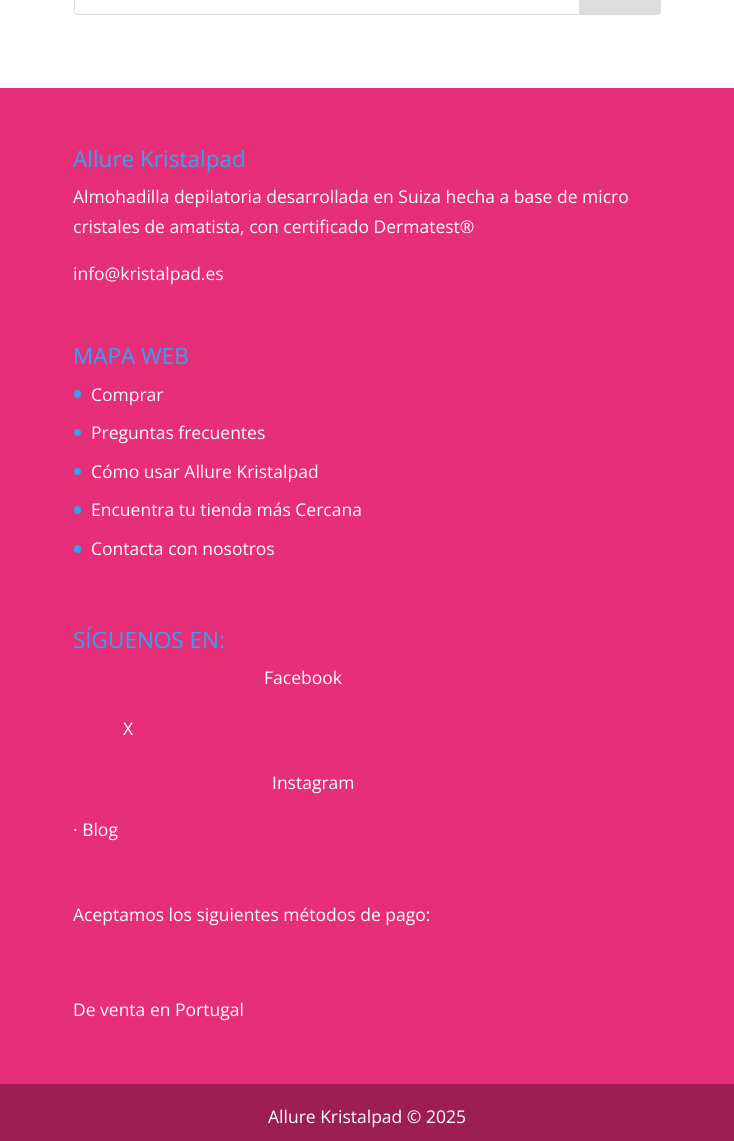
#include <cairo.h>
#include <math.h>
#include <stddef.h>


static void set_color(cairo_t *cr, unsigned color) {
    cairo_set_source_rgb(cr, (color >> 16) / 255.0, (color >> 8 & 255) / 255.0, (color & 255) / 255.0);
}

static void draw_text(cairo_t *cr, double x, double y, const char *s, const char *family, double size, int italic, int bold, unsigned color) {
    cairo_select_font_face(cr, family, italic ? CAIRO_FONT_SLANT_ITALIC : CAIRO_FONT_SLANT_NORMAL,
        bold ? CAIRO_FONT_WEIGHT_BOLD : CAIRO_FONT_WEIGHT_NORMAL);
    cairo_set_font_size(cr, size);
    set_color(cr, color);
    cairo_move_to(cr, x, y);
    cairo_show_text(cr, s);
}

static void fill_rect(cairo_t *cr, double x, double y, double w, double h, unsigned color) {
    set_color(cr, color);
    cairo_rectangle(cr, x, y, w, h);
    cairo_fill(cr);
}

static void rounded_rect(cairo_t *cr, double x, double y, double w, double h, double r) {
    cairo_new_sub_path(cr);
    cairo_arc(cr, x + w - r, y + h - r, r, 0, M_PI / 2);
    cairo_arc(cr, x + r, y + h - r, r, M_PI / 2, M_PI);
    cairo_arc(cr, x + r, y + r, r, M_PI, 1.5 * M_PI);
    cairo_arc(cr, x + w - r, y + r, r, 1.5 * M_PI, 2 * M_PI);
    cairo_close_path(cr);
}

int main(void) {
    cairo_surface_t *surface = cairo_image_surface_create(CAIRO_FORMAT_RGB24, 734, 1141);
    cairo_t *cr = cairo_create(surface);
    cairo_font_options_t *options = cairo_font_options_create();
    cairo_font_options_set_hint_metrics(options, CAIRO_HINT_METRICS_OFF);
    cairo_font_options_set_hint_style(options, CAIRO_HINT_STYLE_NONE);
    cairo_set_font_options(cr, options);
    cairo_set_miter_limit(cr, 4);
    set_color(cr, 0xFFFFFF);
    cairo_paint(cr);
    rounded_rect(cr, 74.5, -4.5, 586, 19, 3.5);
    set_color(cr, 0xDDDDDD);
    cairo_set_line_width(cr, 1);
    cairo_stroke(cr);
    cairo_new_path(cr);
    cairo_move_to(cr, 579.5, -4.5);
    cairo_line_to(cr, 657, -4.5);
    cairo_curve_to(cr, 659, -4.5, 660.5, -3, 660.5, -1);
    cairo_line_to(cr, 660.5, 11);
    cairo_curve_to(cr, 660.5, 13, 659, 14.5, 657, 14.5);
    cairo_line_to(cr, 579.5, 14.5);
    cairo_close_path(cr);
    cairo_fill_preserve(cr);
    cairo_stroke(cr);
    fill_rect(cr, 0, 88, 734, 996, 0xE72E78);
    draw_text(cr, 73, 167, "Allure Kristalpad", "Open Sans", 22.5, 0, 0, 0x2EA3F2);
    draw_text(cr, 73, 203, "Almohadilla depilatoria desarrollada en Suiza hecha a base de micro", "Open Sans", 17.5, 0, 0, 0xFFFFFF);
    draw_text(cr, 73, 233, "cristales de amatista, con certificado Dermatest®", "Open Sans", 17.5, 0, 0, 0xFFFFFF);
    draw_text(cr, 73, 280, "info@kristalpad.es", "Open Sans", 17.5, 0, 0, 0xFFFFFF);
    draw_text(cr, 73, 364, "MAPA WEB", "Open Sans", 22.5, 0, 0, 0x2EA3F2);
    rounded_rect(cr, 74, 390, 7, 8, 3.5);
    cairo_fill(cr);
    draw_text(cr, 91, 401, "Comprar", "Open Sans", 17.5, 0, 0, 0xFFFFFF);
    set_color(cr, 0x2EA3F2);
    cairo_new_path(cr);
    cairo_arc(cr, 77.5, 432.5, 3.5, 0, 2 * M_PI);
    cairo_fill(cr);
    draw_text(cr, 91, 439, "Preguntas frecuentes", "Open Sans", 17.5, 0, 0, 0xFFFFFF);
    set_color(cr, 0x2EA3F2);
    cairo_new_path(cr);
    cairo_arc(cr, 77.5, 471.5, 3.5, 0, 2 * M_PI);
    cairo_fill(cr);
    draw_text(cr, 91, 478, "Cómo usar Allure Kristalpad", "Open Sans", 17.5, 0, 0, 0xFFFFFF);
    set_color(cr, 0x2EA3F2);
    rounded_rect(cr, 74, 506, 7, 8, 3.5);
    cairo_fill(cr);
    draw_text(cr, 91, 516, "Encuentra tu tienda más Cercana", "Open Sans", 17.5, 0, 0, 0xFFFFFF);
    set_color(cr, 0x2EA3F2);
    rounded_rect(cr, 74, 545, 7, 8, 3.5);
    cairo_fill(cr);
    draw_text(cr, 91, 555, "Contacta con nosotros", "Open Sans", 17.5, 0, 0, 0xFFFFFF);
    draw_text(cr, 73, 648, "SÍGUENOS EN:", "Open Sans", 22.5, 0, 0, 0x2EA3F2);
    draw_text(cr, 264, 684, "Facebook", "Open Sans", 17.5, 0, 0, 0xFFFFFF);
    draw_text(cr, 123, 735, "X", "Open Sans", 17.5, 0, 0, 0xFFFFFF);
    draw_text(cr, 272, 789, "Instagram", "Open Sans", 17.5, 0, 0, 0xFFFFFF);
    draw_text(cr, 73, 836, "· Blog", "Open Sans", 17.5, 0, 0, 0xFFFFFF);
    draw_text(cr, 73, 921, "Aceptamos los siguientes métodos de pago:", "Open Sans", 17.5, 0, 0, 0xFFFFFF);
    draw_text(cr, 73, 1016, "De venta en Portugal", "Open Sans", 17.5, 0, 0, 0xFFFFFF);
    fill_rect(cr, 0, 1084, 734, 57, 0x9D1F52);
    draw_text(cr, 268, 1123, "Allure Kristalpad © 2025", "Open Sans", 17.5, 0, 0, 0xFFFFFF);
    cairo_surface_write_to_png(surface, "output.png");
    cairo_font_options_destroy(options);
    cairo_destroy(cr);
    cairo_surface_destroy(surface);
    return 0;
}
